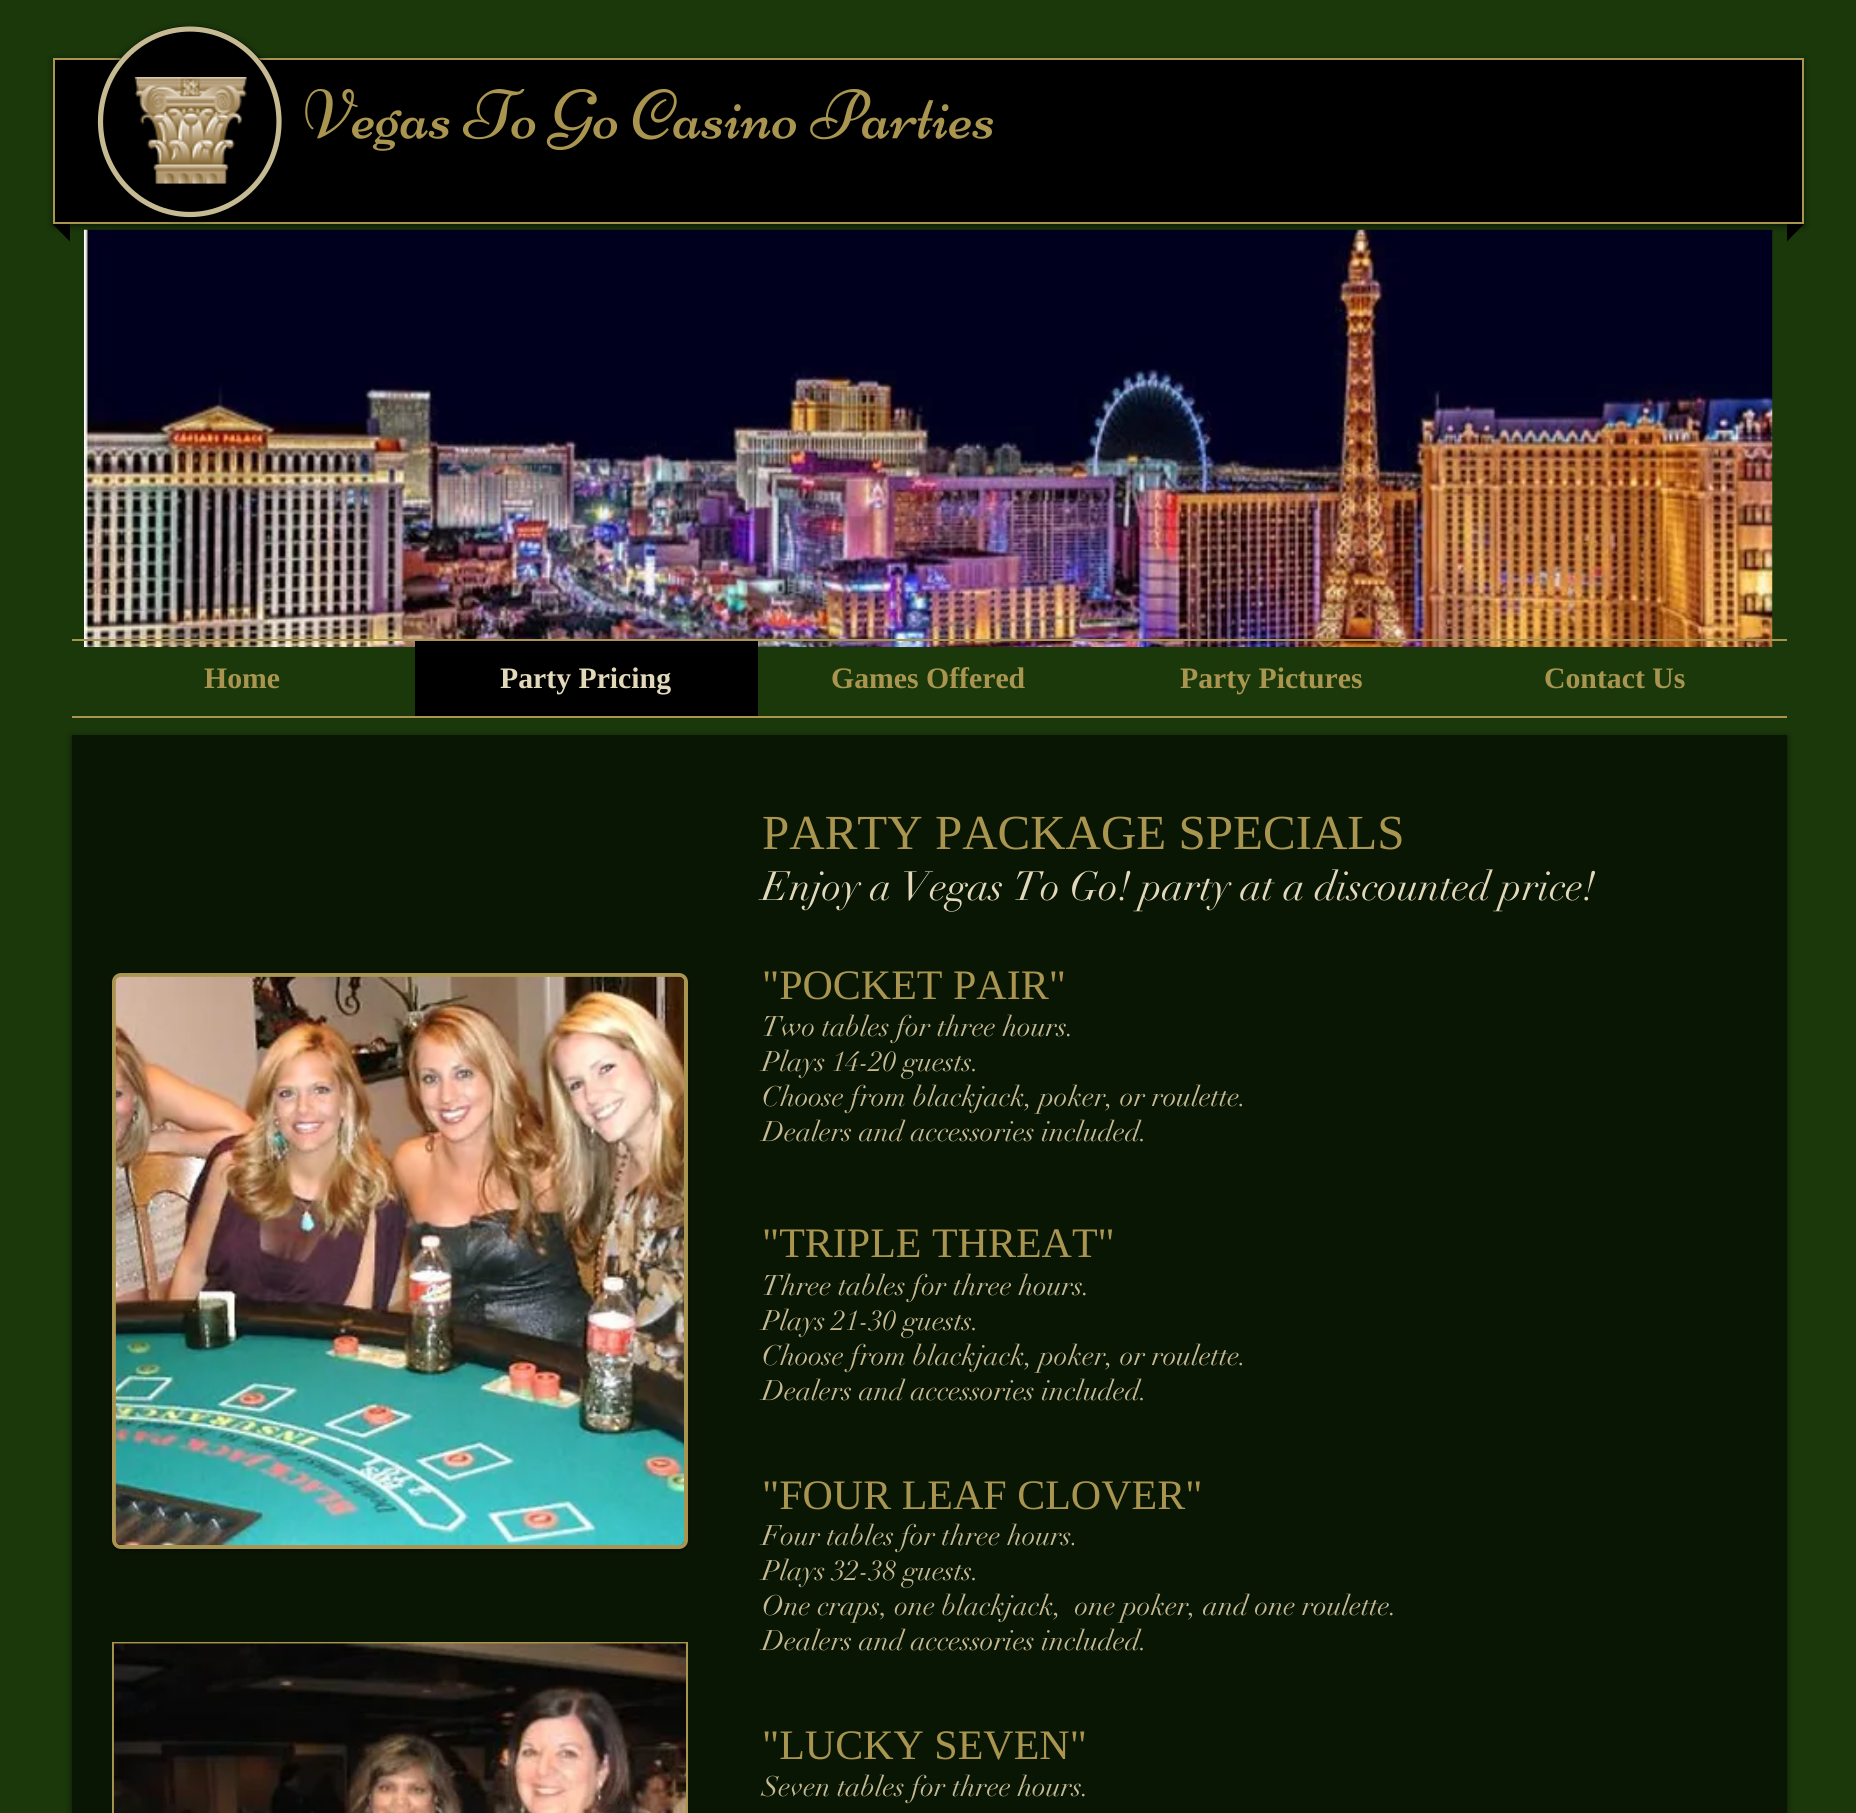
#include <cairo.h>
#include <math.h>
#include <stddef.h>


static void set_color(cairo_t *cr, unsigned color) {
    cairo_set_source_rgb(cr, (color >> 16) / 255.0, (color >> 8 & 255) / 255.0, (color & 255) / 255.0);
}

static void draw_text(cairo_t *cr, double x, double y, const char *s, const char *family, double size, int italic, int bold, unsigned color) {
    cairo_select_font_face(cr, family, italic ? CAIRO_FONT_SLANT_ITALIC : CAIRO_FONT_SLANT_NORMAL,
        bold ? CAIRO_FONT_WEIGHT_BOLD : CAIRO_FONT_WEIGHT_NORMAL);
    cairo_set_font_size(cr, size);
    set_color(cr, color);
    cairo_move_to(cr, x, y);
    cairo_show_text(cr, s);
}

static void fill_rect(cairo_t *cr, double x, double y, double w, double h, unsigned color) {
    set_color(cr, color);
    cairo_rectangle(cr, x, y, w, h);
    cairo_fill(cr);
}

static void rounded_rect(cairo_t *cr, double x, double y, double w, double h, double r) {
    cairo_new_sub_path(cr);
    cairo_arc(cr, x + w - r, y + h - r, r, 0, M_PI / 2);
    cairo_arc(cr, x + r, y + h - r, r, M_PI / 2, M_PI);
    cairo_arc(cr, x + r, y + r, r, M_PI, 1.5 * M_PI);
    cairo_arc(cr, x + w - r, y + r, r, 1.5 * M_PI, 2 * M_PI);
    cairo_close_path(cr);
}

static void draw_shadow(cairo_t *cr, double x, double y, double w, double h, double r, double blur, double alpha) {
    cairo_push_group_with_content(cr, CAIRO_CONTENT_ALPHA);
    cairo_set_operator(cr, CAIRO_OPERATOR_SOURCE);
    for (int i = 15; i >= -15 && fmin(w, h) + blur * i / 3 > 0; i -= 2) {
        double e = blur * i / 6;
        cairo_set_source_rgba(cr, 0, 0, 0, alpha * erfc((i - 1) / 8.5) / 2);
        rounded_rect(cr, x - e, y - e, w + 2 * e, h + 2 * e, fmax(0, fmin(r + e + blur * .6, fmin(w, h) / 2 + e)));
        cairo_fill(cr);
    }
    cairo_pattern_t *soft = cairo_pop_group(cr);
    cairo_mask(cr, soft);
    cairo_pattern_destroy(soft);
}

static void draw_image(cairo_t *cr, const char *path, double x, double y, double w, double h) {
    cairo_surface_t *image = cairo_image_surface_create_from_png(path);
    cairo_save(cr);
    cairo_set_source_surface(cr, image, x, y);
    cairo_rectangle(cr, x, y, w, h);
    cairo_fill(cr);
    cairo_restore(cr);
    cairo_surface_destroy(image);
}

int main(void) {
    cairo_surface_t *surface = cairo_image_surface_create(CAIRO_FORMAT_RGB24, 1856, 1813);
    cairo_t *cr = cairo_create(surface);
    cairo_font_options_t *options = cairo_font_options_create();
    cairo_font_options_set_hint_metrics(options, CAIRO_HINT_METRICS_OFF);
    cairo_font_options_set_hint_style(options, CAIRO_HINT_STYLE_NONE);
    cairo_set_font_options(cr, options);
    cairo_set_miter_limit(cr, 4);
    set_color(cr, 0x1A380A);
    cairo_paint(cr);
    set_color(cr, 0x000000);
    cairo_new_path(cr);
    cairo_move_to(cr, 52.5, 224);
    cairo_line_to(cr, 70, 224);
    cairo_line_to(cr, 70, 241.5);
    cairo_close_path(cr);
    cairo_fill(cr);
    cairo_new_path(cr);
    cairo_move_to(cr, 1787, 224);
    cairo_line_to(cr, 1804, 224);
    cairo_line_to(cr, 1787, 241.5);
    cairo_close_path(cr);
    cairo_fill(cr);
    set_color(cr, 0x000000);
    draw_shadow(cr, 53, 60, 1751, 166, 0, 3.5, 0.6);
    set_color(cr, 0x000000);
    cairo_rectangle(cr, 54, 59, 1749, 164);
    cairo_fill_preserve(cr);
    set_color(cr, 0xAA9550);
    cairo_stroke(cr);
    set_color(cr, 0x000000);
    draw_shadow(cr, 98, 28, 184, 191, 92, 3.5, 0.6);
    set_color(cr, 0x000000);
    cairo_new_path(cr);
    cairo_move_to(cr, 190, 26);
    cairo_curve_to(cr, 241, 26, 282, 69, 282, 121.5);
    cairo_curve_to(cr, 282, 174, 241, 217, 190, 217);
    cairo_curve_to(cr, 139, 217, 98, 174, 98, 121.5);
    cairo_curve_to(cr, 98, 69, 139, 26, 190, 26);
    cairo_close_path(cr);
    cairo_fill(cr);
    cairo_new_path(cr);
    cairo_move_to(cr, 190, 29);
    cairo_curve_to(cr, 239, 29, 279, 70.5, 279, 121.5);
    cairo_curve_to(cr, 279, 173, 239, 214.5, 190, 214.5);
    cairo_curve_to(cr, 140.5, 214.5, 100.5, 173, 100.5, 121.5);
    cairo_curve_to(cr, 100.5, 70.5, 140.5, 29, 190, 29);
    cairo_close_path(cr);
    set_color(cr, 0xC6BA92);
    cairo_set_line_width(cr, 5.2);
    cairo_stroke(cr);
    draw_image(cr, "assets/img1.png", 134, 77, 113, 107);
    draw_image(cr, "assets/img2.png", 305, 89, 688, 62);
    draw_image(cr, "assets/img3.png", 84, 229, 1689, 419);
    fill_rect(cr, 72, 639, 1715, 2, 0xAA9550);
    fill_rect(cr, 72, 716, 1715, 2, 0xAA9550);
    draw_text(cr, 204, 688, "Home", "Liberation Serif", 29.75, 0, 1, 0xAA9550);
    fill_rect(cr, 415, 641, 343, 75, 0x000000);
    draw_text(cr, 500, 688, "Party Pricing", "Liberation Serif", 29.75, 0, 1, 0xE2D9BA);
    draw_text(cr, 831, 688, "Games Offered", "Liberation Serif", 29.75, 0, 1, 0xAA9550);
    draw_text(cr, 1180, 688, "Party Pictures", "Liberation Serif", 29.75, 0, 1, 0xAA9550);
    draw_text(cr, 1544, 688, "Contact Us", "Liberation Serif", 29.75, 0, 1, 0xAA9550);
    cairo_save(cr);
    cairo_set_fill_rule(cr, CAIRO_FILL_RULE_EVEN_ODD);
    cairo_new_path(cr);
    cairo_move_to(cr, 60, 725);
    cairo_line_to(cr, 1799, 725);
    cairo_line_to(cr, 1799, 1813);
    cairo_line_to(cr, 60, 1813);
    cairo_close_path(cr);
    cairo_move_to(cr, 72, 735);
    cairo_line_to(cr, 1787, 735);
    cairo_line_to(cr, 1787, 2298);
    cairo_line_to(cr, 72, 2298);
    cairo_close_path(cr);
    cairo_clip(cr);
    set_color(cr, 0x000000);
    draw_shadow(cr, 72, 737, 1715, 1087, 0, 3.5, 0.6);
    cairo_restore(cr);
    cairo_set_source_rgba(cr, 0, 0, 0, 0.6);
    cairo_rectangle(cr, 72, 735, 1715, 1078);
    cairo_fill(cr);
    set_color(cr, 0x000000);
    draw_shadow(cr, 112, 975, 576, 576, 9, 2.5, 0.5);
    rounded_rect(cr, 114, 975, 572, 572, 7);
    set_color(cr, 0xAA9550);
    cairo_set_line_width(cr, 4);
    cairo_stroke(cr);
    draw_image(cr, "assets/img4.png", 115, 976, 569, 569);
    draw_text(cr, 762, 849, "PARTY PACKAGE SPECIALS", "Liberation Serif", 49, 0, 0, 0xAA9550);
    draw_text(cr, 762, 900, "Enjoy a Vegas To Go! party at a discounted price!", "didot", 40.25, 0, 0, 0xE2D9BA);
    draw_text(cr, 762, 999, "\"POCKET PAIR\"", "Liberation Serif", 42, 0, 0, 0xAA9550);
    draw_text(cr, 762, 1036, "Two tables for three hours.", "didot", 28, 0, 0, 0xC6BA92);
    draw_text(cr, 762, 1071, "Plays 14-20 guests.", "didot", 28, 0, 0, 0xC6BA92);
    draw_text(cr, 762, 1106, "Choose from blackjack, poker, or roulette.", "didot", 28, 0, 0, 0xC6BA92);
    draw_text(cr, 762, 1141, "Dealers and accessories included.", "didot", 28, 0, 0, 0xC6BA92);
    draw_text(cr, 762, 1257, "\"TRIPLE THREAT\"", "Liberation Serif", 42, 0, 0, 0xAA9550);
    draw_text(cr, 762, 1295, "Three tables for three hours.", "didot", 28, 0, 0, 0xC6BA92);
    draw_text(cr, 762, 1330, "Plays 21-30 guests.", "didot", 28, 0, 0, 0xC6BA92);
    draw_text(cr, 762, 1365, "Choose from blackjack, poker, or roulette.", "didot", 28, 0, 0, 0xC6BA92);
    draw_text(cr, 762, 1400, "Dealers and accessories included.", "didot", 28, 0, 0, 0xC6BA92);
    draw_text(cr, 762, 1509, "\"FOUR LEAF CLOVER\"", "Liberation Serif", 42, 0, 0, 0xAA9550);
    draw_text(cr, 762, 1545, "Four tables for three hours.", "didot", 28, 0, 0, 0xC6BA92);
    draw_text(cr, 762, 1580, "Plays 32-38 guests.", "didot", 28, 0, 0, 0xC6BA92);
    draw_text(cr, 762, 1615, "One craps, one blackjack,  one poker, and one roulette.", "didot", 28, 0, 0, 0xC6BA92);
    draw_text(cr, 762, 1650, "Dealers and accessories included.", "didot", 28, 0, 0, 0xC6BA92);
    draw_text(cr, 762, 1759, "\"LUCKY SEVEN\"", "Liberation Serif", 42, 0, 0, 0xAA9550);
    draw_text(cr, 762, 1796, "Seven tables for three hours.", "didot", 28, 0, 0, 0xC6BA92);
    fill_rect(cr, 112, 1642, 576, 171, 0xAA9550);
    draw_image(cr, "assets/img5.png", 113, 1643, 573, 170);
    cairo_surface_write_to_png(surface, "output.png");
    cairo_font_options_destroy(options);
    cairo_destroy(cr);
    cairo_surface_destroy(surface);
    return 0;
}
